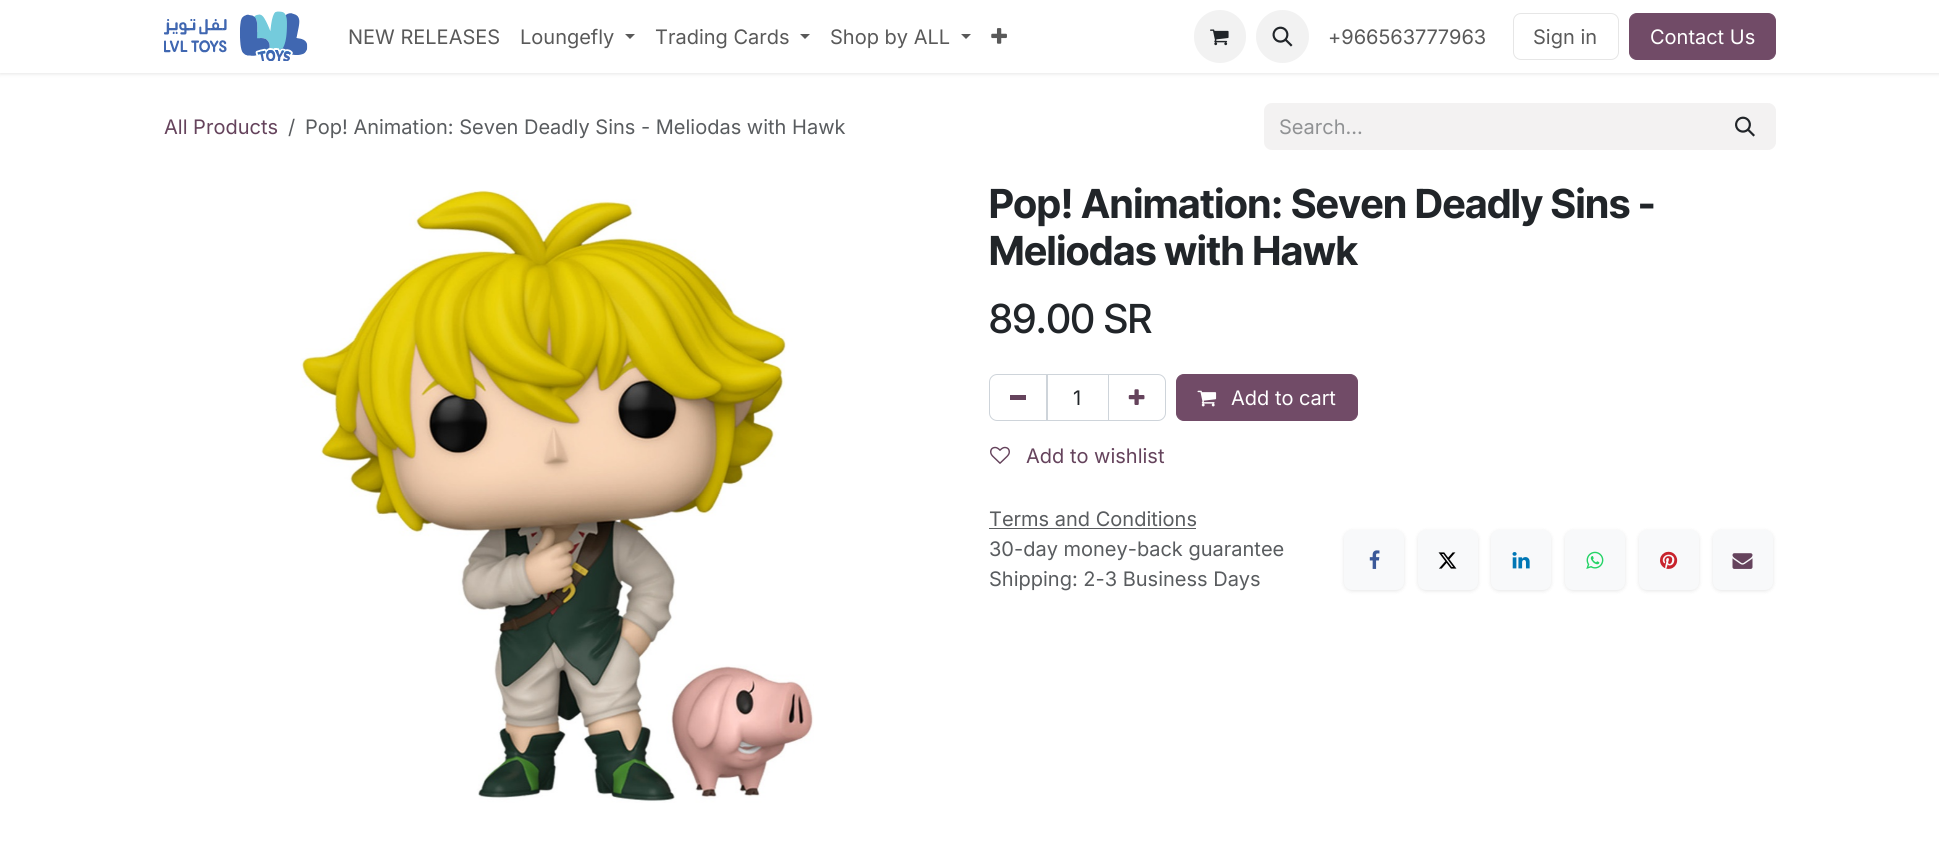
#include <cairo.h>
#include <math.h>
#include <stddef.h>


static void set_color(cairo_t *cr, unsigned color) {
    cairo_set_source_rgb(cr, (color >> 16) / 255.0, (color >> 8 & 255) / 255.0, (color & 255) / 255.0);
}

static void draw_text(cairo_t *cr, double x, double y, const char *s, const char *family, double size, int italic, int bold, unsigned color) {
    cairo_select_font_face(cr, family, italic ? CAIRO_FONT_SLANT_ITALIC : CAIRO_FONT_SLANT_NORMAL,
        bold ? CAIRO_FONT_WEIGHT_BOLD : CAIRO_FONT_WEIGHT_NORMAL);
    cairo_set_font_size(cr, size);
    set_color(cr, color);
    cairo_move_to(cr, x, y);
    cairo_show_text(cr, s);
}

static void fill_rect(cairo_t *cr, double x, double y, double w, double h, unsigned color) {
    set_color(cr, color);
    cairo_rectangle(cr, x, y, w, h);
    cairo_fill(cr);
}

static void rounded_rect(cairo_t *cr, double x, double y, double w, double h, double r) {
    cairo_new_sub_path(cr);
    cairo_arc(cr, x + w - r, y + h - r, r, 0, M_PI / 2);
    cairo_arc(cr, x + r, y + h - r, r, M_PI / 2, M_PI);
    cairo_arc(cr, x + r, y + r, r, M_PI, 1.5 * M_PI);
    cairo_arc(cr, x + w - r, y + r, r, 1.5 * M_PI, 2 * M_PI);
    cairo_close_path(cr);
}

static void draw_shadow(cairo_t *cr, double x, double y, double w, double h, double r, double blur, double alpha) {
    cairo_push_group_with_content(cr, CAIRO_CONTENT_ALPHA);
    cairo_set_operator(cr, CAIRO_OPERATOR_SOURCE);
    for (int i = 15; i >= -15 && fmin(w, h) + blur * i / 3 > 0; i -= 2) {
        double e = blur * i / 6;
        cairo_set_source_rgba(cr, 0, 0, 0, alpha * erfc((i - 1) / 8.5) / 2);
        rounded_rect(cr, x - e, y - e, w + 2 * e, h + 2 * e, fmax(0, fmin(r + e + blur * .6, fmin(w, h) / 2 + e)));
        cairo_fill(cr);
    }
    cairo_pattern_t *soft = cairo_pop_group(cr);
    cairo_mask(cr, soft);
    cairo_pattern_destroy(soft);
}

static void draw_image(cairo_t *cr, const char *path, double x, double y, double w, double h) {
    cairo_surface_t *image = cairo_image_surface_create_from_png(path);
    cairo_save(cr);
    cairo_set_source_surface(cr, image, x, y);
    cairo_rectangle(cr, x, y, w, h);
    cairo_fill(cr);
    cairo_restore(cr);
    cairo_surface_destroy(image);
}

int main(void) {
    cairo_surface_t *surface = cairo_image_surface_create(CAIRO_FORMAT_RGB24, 1939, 843);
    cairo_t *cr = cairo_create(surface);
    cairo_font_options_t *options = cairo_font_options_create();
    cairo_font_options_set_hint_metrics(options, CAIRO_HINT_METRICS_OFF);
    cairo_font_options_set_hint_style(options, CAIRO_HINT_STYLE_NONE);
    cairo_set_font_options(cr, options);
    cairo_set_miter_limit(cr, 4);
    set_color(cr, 0xFFFFFF);
    cairo_paint(cr);
    set_color(cr, 0x000000);
    draw_shadow(cr, 0, 1, 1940, 73, 0, 2, 0.1);
    fill_rect(cr, 0, 0, 1939, 73, 0xFFFFFF);
    draw_image(cr, "assets/img1.png", 164, 11, 144, 50);
    draw_text(cr, 348, 44, "NEW RELEASES", "Inter", 20, 0, 0, 0x595959);
    draw_text(cr, 520, 44, "Loungefly", "Inter", 20, 0, 0, 0x595959);
    cairo_new_path(cr);
    cairo_move_to(cr, 625, 34);
    cairo_line_to(cr, 635, 34);
    cairo_line_to(cr, 630, 39);
    cairo_close_path(cr);
    cairo_fill(cr);
    draw_text(cr, 655, 44, "Trading Cards", "Inter", 20, 0, 0, 0x595959);
    cairo_new_path(cr);
    cairo_move_to(cr, 800, 34);
    cairo_line_to(cr, 810, 34);
    cairo_line_to(cr, 805, 39);
    cairo_close_path(cr);
    cairo_fill(cr);
    draw_text(cr, 830, 44, "Shop by ALL", "Inter", 20, 0, 0, 0x595959);
    cairo_new_path(cr);
    cairo_move_to(cr, 961, 34);
    cairo_line_to(cr, 971, 34);
    cairo_line_to(cr, 966, 39);
    cairo_close_path(cr);
    cairo_fill(cr);
    draw_image(cr, "assets/img2.png", 991, 28, 16, 16);
    set_color(cr, 0xF2F2F2);
    rounded_rect(cr, 1194, 10, 52, 53, 26);
    cairo_fill(cr);
    draw_image(cr, "assets/img3.png", 1210, 29, 19, 17);
    cairo_arc(cr, 1282.5, 36.5, 26.5, 0, 2 * M_PI);
    cairo_fill(cr);
    draw_image(cr, "assets/img4.png", 1272, 26, 21, 21);
    draw_text(cr, 1328, 44, "+966563777963", "Inter", 20, 0, 0, 0x595959);
    rounded_rect(cr, 1513.5, 13.5, 105, 46, 7.5);
    set_color(cr, 0xE6E6E6);
    cairo_set_line_width(cr, 1);
    cairo_stroke(cr);
    draw_text(cr, 1533, 44, "Sign in", "Inter", 20, 0, 0, 0x595959);
    set_color(cr, 0x714B67);
    rounded_rect(cr, 1629.5, 13.5, 146, 46, 7.5);
    cairo_fill_preserve(cr);
    cairo_stroke(cr);
    draw_text(cr, 1650, 44, "Contact Us", "Inter", 20, 0, 0, 0xFFFFFF);
    draw_text(cr, 164, 134, "All Products", "Inter", 20, 0, 0, 0x65435C);
    draw_text(cr, 288, 134, "/", "Inter", 20, 0, 0, 0x595C5F);
    draw_text(cr, 305, 134, "Pop! Animation: Seven Deadly Sins - Meliodas with Hawk", "Inter", 20, 0, 0, 0x595C5F);
    set_color(cr, 0xF3F2F2);
    cairo_new_path(cr);
    cairo_move_to(cr, 1272, 103);
    cairo_line_to(cr, 1715, 103);
    cairo_line_to(cr, 1715, 150);
    cairo_line_to(cr, 1272, 150);
    cairo_curve_to(cr, 1267.5, 150, 1264, 146.5, 1264, 142);
    cairo_line_to(cr, 1264, 111);
    cairo_curve_to(cr, 1264, 106.5, 1267.5, 103, 1272, 103);
    cairo_close_path(cr);
    cairo_fill(cr);
    draw_text(cr, 1279, 134, "Search...", "Inter", 20, 0, 0, 0x909294);
    set_color(cr, 0xF3F2F2);
    cairo_new_path(cr);
    cairo_move_to(cr, 1714.5, 103.5);
    cairo_line_to(cr, 1768, 103.5);
    cairo_curve_to(cr, 1772, 103.5, 1775.5, 107, 1775.5, 111);
    cairo_line_to(cr, 1775.5, 142);
    cairo_curve_to(cr, 1775.5, 146, 1772, 149.5, 1768, 149.5);
    cairo_line_to(cr, 1714.5, 149.5);
    cairo_close_path(cr);
    cairo_fill_preserve(cr);
    cairo_stroke(cr);
    draw_image(cr, "assets/img5.png", 1735, 116, 20, 21);
    draw_image(cr, "assets/img6.png", 300, 190, 514, 613);
    draw_text(cr, 989, 218, "Pop! Animation: Seven Deadly Sins -", "Inter Tight", 40, 0, 1, 0x212529);
    draw_text(cr, 989, 265, "Meliodas with Hawk", "Inter Tight", 40, 0, 1, 0x212529);
    draw_text(cr, 989, 333, "89.00 SR", "Inter Tight Medium", 40, 0, 0, 0x212529);
    cairo_rectangle(cr, 1046.5, 374.5, 62, 46);
    set_color(cr, 0xCED4DA);
    cairo_stroke(cr);
    cairo_new_path(cr);
    cairo_move_to(cr, 997, 374.5);
    cairo_line_to(cr, 1047.5, 374.5);
    cairo_line_to(cr, 1047.5, 420.5);
    cairo_line_to(cr, 997, 420.5);
    cairo_curve_to(cr, 993, 420.5, 989.5, 417, 989.5, 413);
    cairo_line_to(cr, 989.5, 382);
    cairo_curve_to(cr, 989.5, 378, 993, 374.5, 997, 374.5);
    cairo_close_path(cr);
    cairo_stroke(cr);
    fill_rect(cr, 1010, 395, 16, 5, 0x65435C);
    draw_text(cr, 1073, 405, "1", "Inter", 20, 0, 0, 0x212529);
    cairo_new_path(cr);
    cairo_move_to(cr, 1108.5, 374.5);
    cairo_line_to(cr, 1158, 374.5);
    cairo_curve_to(cr, 1162, 374.5, 1165.5, 378, 1165.5, 382);
    cairo_line_to(cr, 1165.5, 413);
    cairo_curve_to(cr, 1165.5, 417, 1162, 420.5, 1158, 420.5);
    cairo_line_to(cr, 1108.5, 420.5);
    cairo_close_path(cr);
    set_color(cr, 0xCED4DA);
    cairo_stroke(cr);
    draw_image(cr, "assets/img7.png", 1128, 389, 17, 16);
    set_color(cr, 0x714B67);
    rounded_rect(cr, 1176.5, 374.5, 181, 46, 7.5);
    cairo_fill_preserve(cr);
    cairo_stroke(cr);
    draw_image(cr, "assets/img8.png", 1197, 390, 20, 17);
    draw_text(cr, 1231, 405, "Add to cart", "Inter", 20, 0, 0, 0xFFFFFF);
    draw_image(cr, "assets/img9.png", 990, 446, 20, 18);
    draw_text(cr, 1026, 463, "Add to wishlist", "Inter", 20, 0, 0, 0x65435C);
    draw_text(cr, 989, 526, "Terms and Conditions", "Inter", 20, 0, 0, 0x595C5F);
    fill_rect(cr, 989, 528, 207, 1, 0x595C5F);
    draw_text(cr, 989, 556, "30-day money-back guarantee", "Inter", 20, 0, 0, 0x595C5F);
    draw_text(cr, 989, 586, "Shipping: 2-3 Business Days", "Inter", 20, 0, 0, 0x595C5F);
    set_color(cr, 0x000000);
    draw_shadow(cr, 1344, 531, 60, 60, 8, 2, 0.1);
    set_color(cr, 0xF8F9FA);
    rounded_rect(cr, 1344, 530, 60, 60, 8);
    cairo_fill(cr);
    draw_image(cr, "assets/img10.png", 1369, 550, 11, 19);
    set_color(cr, 0x000000);
    draw_shadow(cr, 1418, 531, 60, 60, 8, 2, 0.1);
    set_color(cr, 0xF8F9FA);
    rounded_rect(cr, 1418, 530, 60, 60, 8);
    cairo_fill(cr);
    draw_image(cr, "assets/img11.png", 1438, 552, 19, 17);
    set_color(cr, 0x000000);
    draw_shadow(cr, 1491, 531, 60, 60, 8, 2, 0.1);
    set_color(cr, 0xF8F9FA);
    rounded_rect(cr, 1491, 530, 60, 60, 8);
    cairo_fill(cr);
    draw_image(cr, "assets/img12.png", 1512, 552, 18, 17);
    set_color(cr, 0x000000);
    draw_shadow(cr, 1565, 531, 60, 60, 8, 2, 0.1);
    set_color(cr, 0xF8F9FA);
    rounded_rect(cr, 1565, 530, 60, 60, 8);
    cairo_fill(cr);
    draw_image(cr, "assets/img13.png", 1586, 551, 18, 18);
    set_color(cr, 0x000000);
    draw_shadow(cr, 1639, 531, 60, 60, 8, 2, 0.1);
    set_color(cr, 0xF8F9FA);
    rounded_rect(cr, 1639, 530, 60, 60, 8);
    cairo_fill(cr);
    draw_image(cr, "assets/img14.png", 1660, 551, 18, 18);
    set_color(cr, 0x000000);
    draw_shadow(cr, 1713, 531, 60, 60, 8, 2, 0.1);
    set_color(cr, 0xF8F9FA);
    rounded_rect(cr, 1713, 530, 60, 60, 8);
    cairo_fill(cr);
    draw_image(cr, "assets/img15.png", 1732, 553, 21, 16);
    cairo_surface_write_to_png(surface, "output.png");
    cairo_font_options_destroy(options);
    cairo_destroy(cr);
    cairo_surface_destroy(surface);
    return 0;
}
